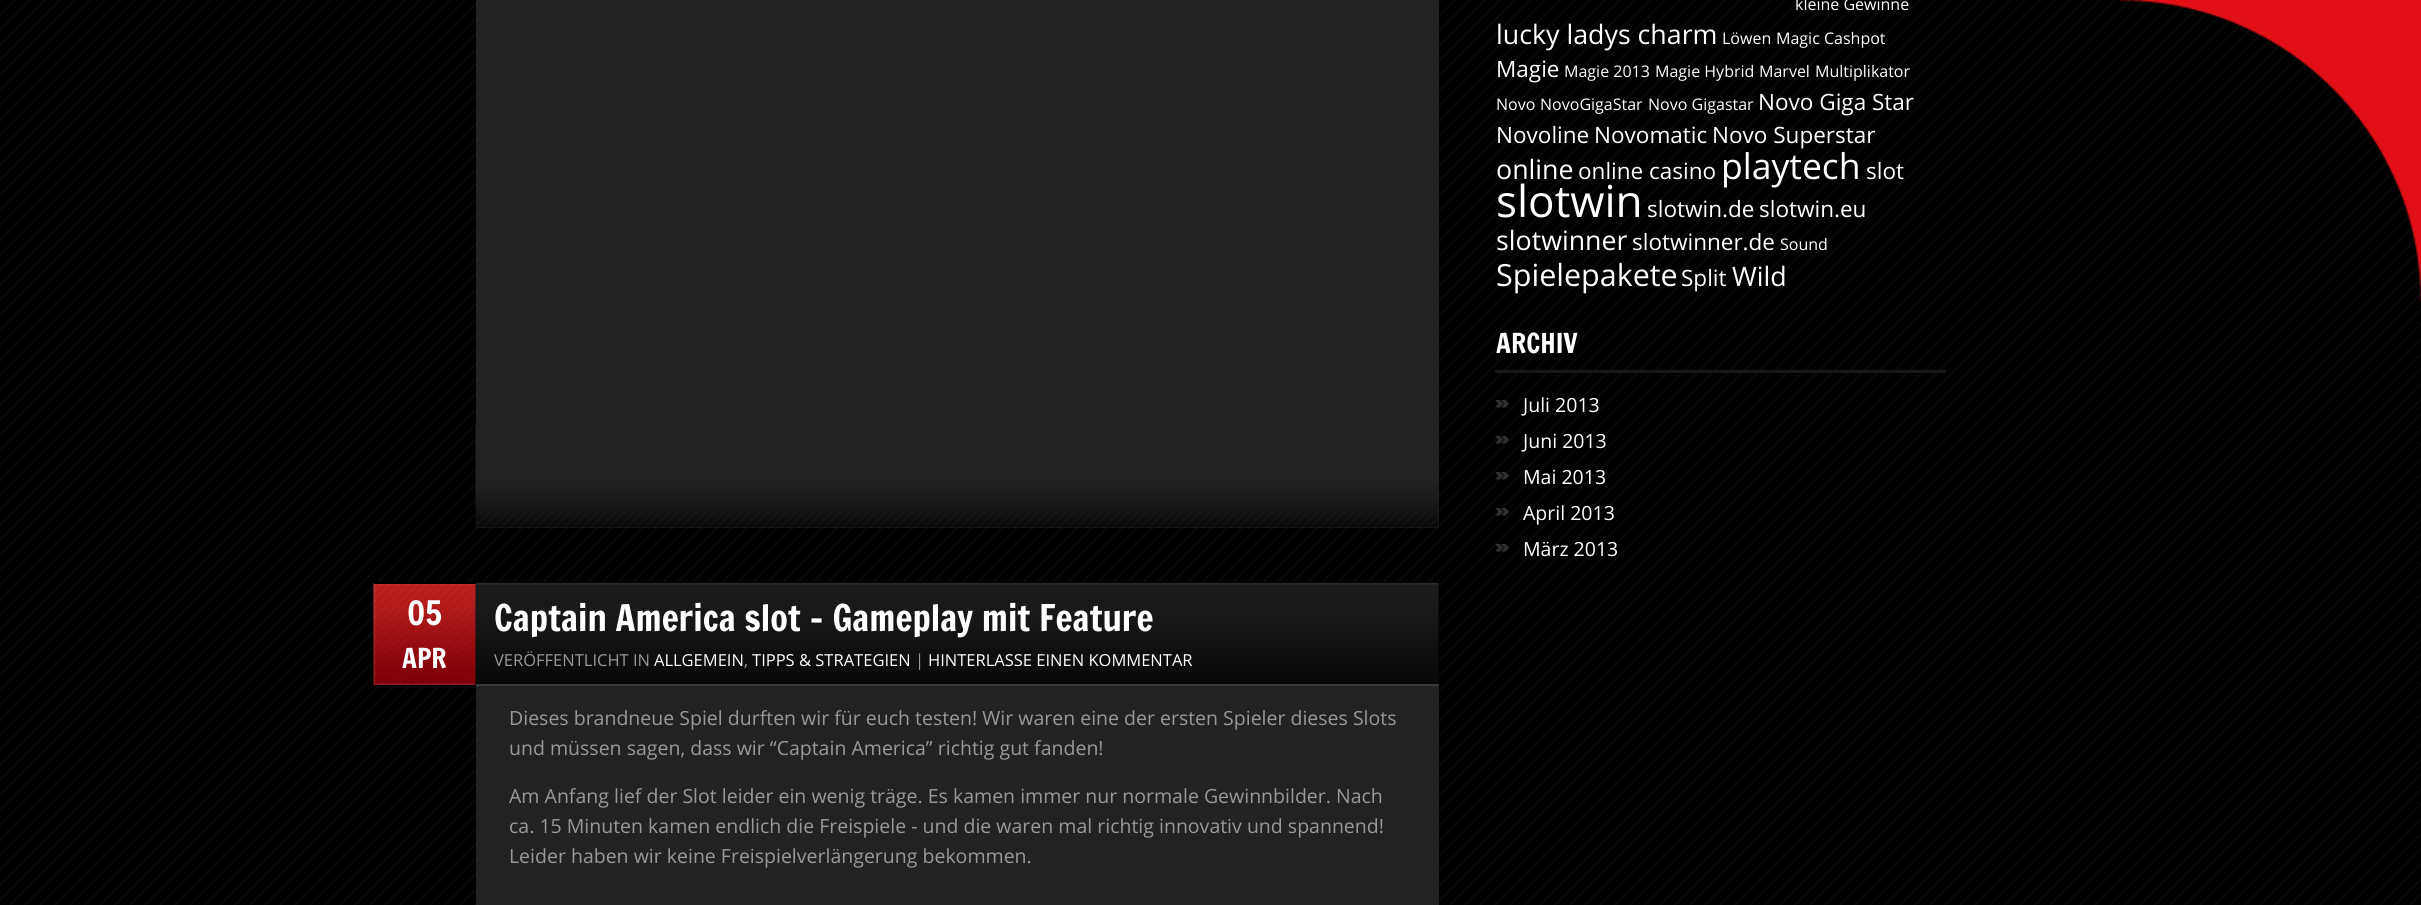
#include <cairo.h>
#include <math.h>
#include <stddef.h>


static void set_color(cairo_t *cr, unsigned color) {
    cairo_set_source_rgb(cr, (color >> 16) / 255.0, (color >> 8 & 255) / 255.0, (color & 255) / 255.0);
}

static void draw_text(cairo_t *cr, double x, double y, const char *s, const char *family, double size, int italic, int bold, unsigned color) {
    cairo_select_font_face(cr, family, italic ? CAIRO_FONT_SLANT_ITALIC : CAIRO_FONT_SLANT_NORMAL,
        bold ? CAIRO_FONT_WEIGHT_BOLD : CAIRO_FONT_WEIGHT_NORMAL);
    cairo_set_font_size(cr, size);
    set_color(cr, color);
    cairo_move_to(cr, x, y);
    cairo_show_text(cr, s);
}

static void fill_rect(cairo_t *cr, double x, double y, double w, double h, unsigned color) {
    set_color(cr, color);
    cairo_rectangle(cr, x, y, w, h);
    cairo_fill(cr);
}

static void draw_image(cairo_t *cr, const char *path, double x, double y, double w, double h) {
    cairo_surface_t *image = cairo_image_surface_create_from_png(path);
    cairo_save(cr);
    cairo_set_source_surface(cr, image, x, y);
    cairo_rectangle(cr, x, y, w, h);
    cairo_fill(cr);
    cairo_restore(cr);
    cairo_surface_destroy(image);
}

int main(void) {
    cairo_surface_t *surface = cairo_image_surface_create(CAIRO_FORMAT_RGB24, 2421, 905);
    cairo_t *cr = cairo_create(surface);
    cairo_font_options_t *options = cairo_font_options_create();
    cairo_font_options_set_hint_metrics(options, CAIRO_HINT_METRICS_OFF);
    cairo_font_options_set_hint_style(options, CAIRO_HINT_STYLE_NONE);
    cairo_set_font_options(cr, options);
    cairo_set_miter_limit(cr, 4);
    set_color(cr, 0xFFFFFF);
    cairo_paint(cr);
    draw_image(cr, "assets/img1.png", 0, 0, 2421, 905);
    draw_text(cr, 1795, 10, "kleine Gewinne", "Open Sans", 16, 0, 0, 0xFFFFFF);
    draw_text(cr, 1496, 44, "lucky ladys charm", "Open Sans", 26.75, 0, 0, 0xFFFFFF);
    draw_text(cr, 1722, 44, "Löwen", "Open Sans", 16, 0, 0, 0xFFFFFF);
    draw_text(cr, 1776, 44, "Magic Cashpot", "Open Sans", 16, 0, 0, 0xFFFFFF);
    draw_text(cr, 1496, 77, "Magie", "Open Sans", 22.5, 0, 0, 0xFFFFFF);
    draw_text(cr, 1564, 77, "Magie 2013", "Open Sans", 16, 0, 0, 0xFFFFFF);
    draw_text(cr, 1655, 77, "Magie Hybrid", "Open Sans", 16, 0, 0, 0xFFFFFF);
    draw_text(cr, 1759, 77, "Marvel", "Open Sans", 16, 0, 0, 0xFFFFFF);
    draw_text(cr, 1815, 77, "Multiplikator", "Open Sans", 16, 0, 0, 0xFFFFFF);
    draw_text(cr, 1496, 110, "Novo", "Open Sans", 16, 0, 0, 0xFFFFFF);
    draw_text(cr, 1540, 110, "NovoGigaStar", "Open Sans", 16, 0, 0, 0xFFFFFF);
    draw_text(cr, 1648, 110, "Novo Gigastar", "Open Sans", 16, 0, 0, 0xFFFFFF);
    draw_text(cr, 1758, 110, "Novo Giga Star", "Open Sans", 22.5, 0, 0, 0xFFFFFF);
    draw_text(cr, 1496, 143, "Novoline", "Open Sans", 22.5, 0, 0, 0xFFFFFF);
    draw_text(cr, 1594, 143, "Novomatic", "Open Sans", 22.5, 0, 0, 0xFFFFFF);
    draw_text(cr, 1712, 143, "Novo Superstar", "Open Sans", 22.5, 0, 0, 0xFFFFFF);
    draw_text(cr, 1496, 179, "online", "Open Sans", 26.75, 0, 0, 0xFFFFFF);
    draw_text(cr, 1578, 179, "online casino", "Open Sans", 22.5, 0, 0, 0xFFFFFF);
    draw_text(cr, 1721, 179, "playtech", "Open Sans", 35.5, 0, 0, 0xFFFFFF);
    draw_text(cr, 1866, 179, "slot", "Open Sans", 22.5, 0, 0, 0xFFFFFF);
    draw_text(cr, 1496, 217, "slotwin", "Open Sans", 44, 0, 0, 0xFFFFFF);
    draw_text(cr, 1647, 217, "slotwin.de", "Open Sans", 22.5, 0, 0, 0xFFFFFF);
    draw_text(cr, 1759, 217, "slotwin.eu", "Open Sans", 22.5, 0, 0, 0xFFFFFF);
    draw_text(cr, 1496, 250, "slotwinner", "Open Sans", 26.75, 0, 0, 0xFFFFFF);
    draw_text(cr, 1632, 250, "slotwinner.de", "Open Sans", 22.5, 0, 0, 0xFFFFFF);
    draw_text(cr, 1780, 250, "Sound", "Open Sans", 16, 0, 0, 0xFFFFFF);
    draw_text(cr, 1496, 286, "Spielepakete", "Open Sans", 30.5, 0, 0, 0xFFFFFF);
    draw_text(cr, 1681, 286, "Split", "Open Sans", 22.5, 0, 0, 0xFFFFFF);
    draw_text(cr, 1732, 286, "Wild", "Open Sans", 26.75, 0, 0, 0xFFFFFF);
    fill_rect(cr, 1495, 370, 451, 3, 0x181818);
    draw_text(cr, 1496, 353, "ARCHIV", "Francois One", 27, 0, 0, 0xFFFFFF);
    draw_image(cr, "assets/img2.png", 1495, 400, 15, 8);
    draw_text(cr, 1523, 412, "Juli 2013", "Open Sans", 19.5, 0, 0, 0xFFFFFF);
    draw_image(cr, "assets/img3.png", 1495, 436, 15, 9);
    draw_text(cr, 1523, 448, "Juni 2013", "Open Sans", 19.5, 0, 0, 0xFFFFFF);
    draw_image(cr, "assets/img4.png", 1495, 472, 15, 9);
    draw_text(cr, 1523, 484, "Mai 2013", "Open Sans", 19.5, 0, 0, 0xFFFFFF);
    draw_image(cr, "assets/img5.png", 1495, 508, 15, 8);
    draw_text(cr, 1523, 520, "April 2013", "Open Sans", 19.5, 0, 0, 0xFFFFFF);
    draw_image(cr, "assets/img6.png", 1495, 544, 15, 8);
    draw_text(cr, 1523, 556, "März 2013", "Open Sans", 19.5, 0, 0, 0xFFFFFF);
    fill_rect(cr, 476, 0, 963, 528, 0x222222);
    draw_image(cr, "assets/img7.png", 475, 425, 964, 103);
    fill_rect(cr, 476, 582, 963, 102, 0x000000);
    draw_image(cr, "assets/img9.png", 475, 581, 964, 103);
    draw_image(cr, "assets/img8.png", 373, 583, 103, 102);
    fill_rect(cr, 374, 582, 102, 2, 0x000000);
    draw_text(cr, 407, 625, "05", "Francois One", 33, 0, 0, 0xFFFFFF);
    draw_text(cr, 402, 668, "APR", "Francois One", 27, 0, 0, 0xFFFFFF);
    draw_text(cr, 494, 631, "Captain America slot - Gameplay mit Feature", "Francois One", 36, 0, 0, 0xFFFFFF);
    draw_text(cr, 494, 666, "VERÖFFENTLICHT IN", "Open Sans", 16.5, 0, 0, 0x999999);
    draw_text(cr, 654, 666, "ALLGEMEIN", "Open Sans", 16.5, 0, 0, 0xFFFFFF);
    draw_text(cr, 744, 666, ",", "Open Sans", 16.5, 0, 0, 0x999999);
    draw_text(cr, 752, 666, "TIPPS & STRATEGIEN", "Open Sans", 16.5, 0, 0, 0xFFFFFF);
    draw_text(cr, 915, 666, "|", "Open Sans", 16.5, 0, 0, 0x999999);
    draw_text(cr, 928, 666, "HINTERLASSE EINEN KOMMENTAR", "Open Sans", 16.5, 0, 0, 0xFFFFFF);
    fill_rect(cr, 476, 686, 963, 219, 0x222222);
    fill_rect(cr, 476, 684, 963, 2, 0x393939);
    draw_text(cr, 509, 725, "Dieses brandneue Spiel durften wir für euch testen! Wir waren eine der ersten Spieler dieses Slots", "Open Sans", 19.5, 0, 0, 0x999999);
    draw_text(cr, 509, 755, "und müssen sagen, dass wir “Captain America” richtig gut fanden!", "Open Sans", 19.5, 0, 0, 0x999999);
    draw_text(cr, 509, 803, "Am Anfang lief der Slot leider ein wenig träge. Es kamen immer nur normale Gewinnbilder. Nach", "Open Sans", 19.5, 0, 0, 0x999999);
    draw_text(cr, 509, 833, "ca. 15 Minuten kamen endlich die Freispiele - und die waren mal richtig innovativ und spannend!", "Open Sans", 19.5, 0, 0, 0x999999);
    draw_text(cr, 509, 863, "Leider haben wir keine Freispielverlängerung bekommen.", "Open Sans", 19.5, 0, 0, 0x999999);
    draw_image(cr, "assets/img10.png", 2119, 0, 302, 302);
    cairo_surface_write_to_png(surface, "output.png");
    cairo_font_options_destroy(options);
    cairo_destroy(cr);
    cairo_surface_destroy(surface);
    return 0;
}
